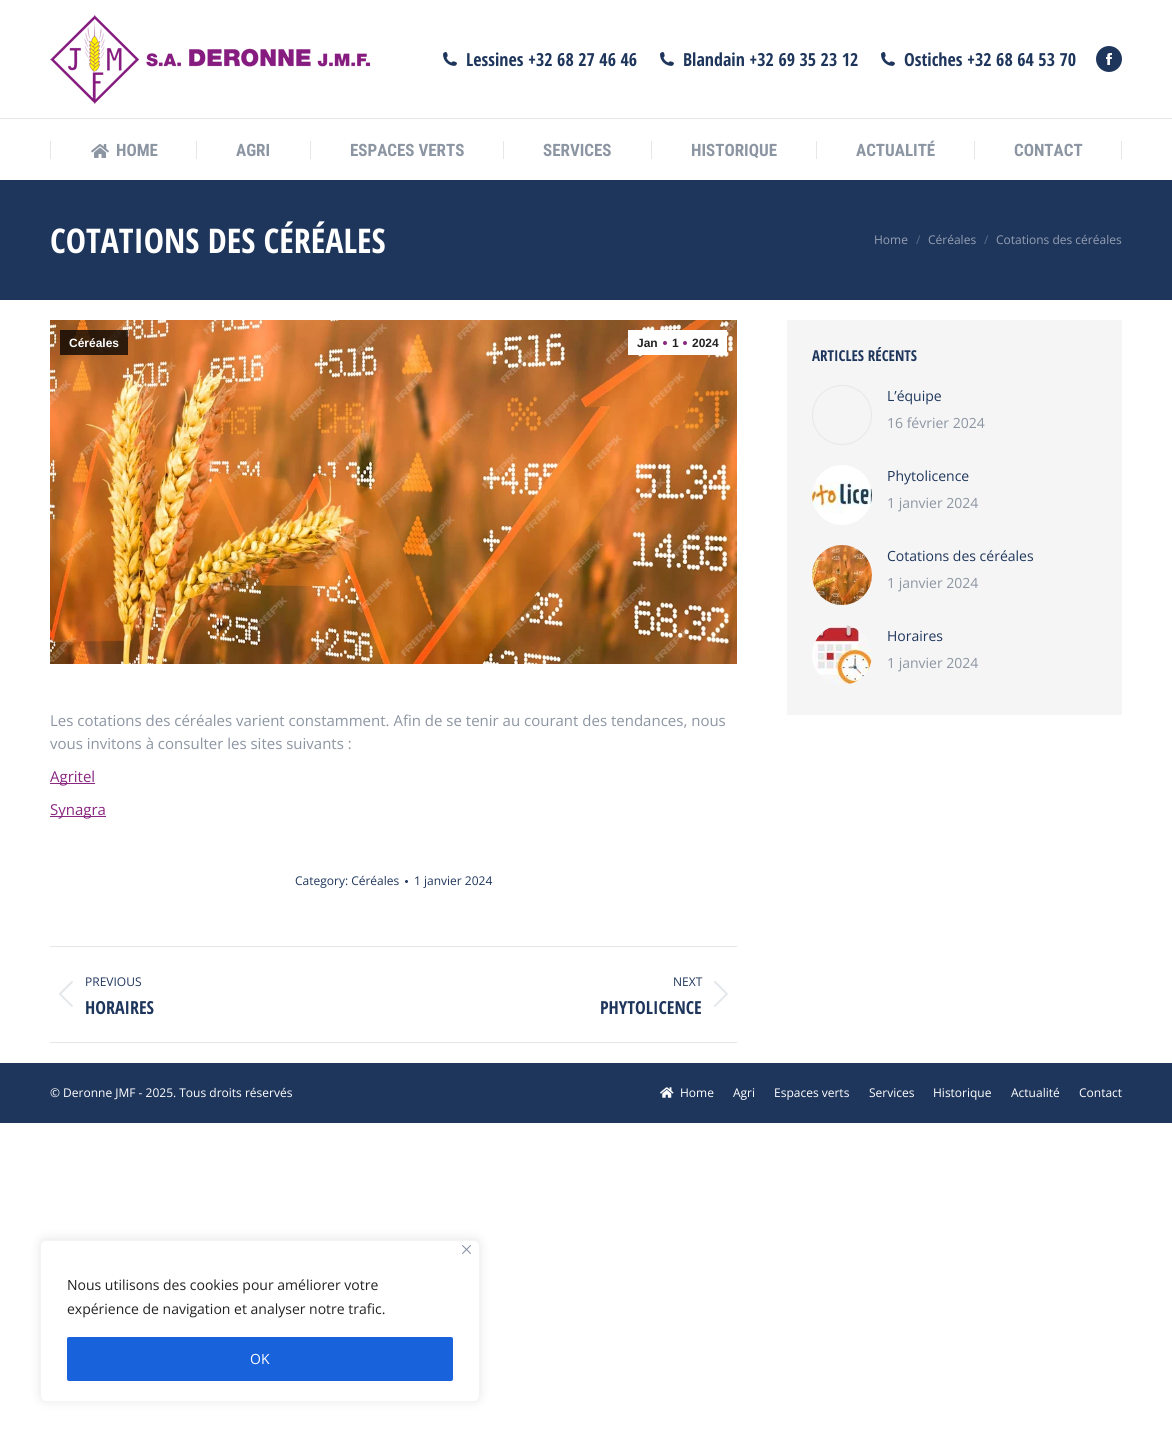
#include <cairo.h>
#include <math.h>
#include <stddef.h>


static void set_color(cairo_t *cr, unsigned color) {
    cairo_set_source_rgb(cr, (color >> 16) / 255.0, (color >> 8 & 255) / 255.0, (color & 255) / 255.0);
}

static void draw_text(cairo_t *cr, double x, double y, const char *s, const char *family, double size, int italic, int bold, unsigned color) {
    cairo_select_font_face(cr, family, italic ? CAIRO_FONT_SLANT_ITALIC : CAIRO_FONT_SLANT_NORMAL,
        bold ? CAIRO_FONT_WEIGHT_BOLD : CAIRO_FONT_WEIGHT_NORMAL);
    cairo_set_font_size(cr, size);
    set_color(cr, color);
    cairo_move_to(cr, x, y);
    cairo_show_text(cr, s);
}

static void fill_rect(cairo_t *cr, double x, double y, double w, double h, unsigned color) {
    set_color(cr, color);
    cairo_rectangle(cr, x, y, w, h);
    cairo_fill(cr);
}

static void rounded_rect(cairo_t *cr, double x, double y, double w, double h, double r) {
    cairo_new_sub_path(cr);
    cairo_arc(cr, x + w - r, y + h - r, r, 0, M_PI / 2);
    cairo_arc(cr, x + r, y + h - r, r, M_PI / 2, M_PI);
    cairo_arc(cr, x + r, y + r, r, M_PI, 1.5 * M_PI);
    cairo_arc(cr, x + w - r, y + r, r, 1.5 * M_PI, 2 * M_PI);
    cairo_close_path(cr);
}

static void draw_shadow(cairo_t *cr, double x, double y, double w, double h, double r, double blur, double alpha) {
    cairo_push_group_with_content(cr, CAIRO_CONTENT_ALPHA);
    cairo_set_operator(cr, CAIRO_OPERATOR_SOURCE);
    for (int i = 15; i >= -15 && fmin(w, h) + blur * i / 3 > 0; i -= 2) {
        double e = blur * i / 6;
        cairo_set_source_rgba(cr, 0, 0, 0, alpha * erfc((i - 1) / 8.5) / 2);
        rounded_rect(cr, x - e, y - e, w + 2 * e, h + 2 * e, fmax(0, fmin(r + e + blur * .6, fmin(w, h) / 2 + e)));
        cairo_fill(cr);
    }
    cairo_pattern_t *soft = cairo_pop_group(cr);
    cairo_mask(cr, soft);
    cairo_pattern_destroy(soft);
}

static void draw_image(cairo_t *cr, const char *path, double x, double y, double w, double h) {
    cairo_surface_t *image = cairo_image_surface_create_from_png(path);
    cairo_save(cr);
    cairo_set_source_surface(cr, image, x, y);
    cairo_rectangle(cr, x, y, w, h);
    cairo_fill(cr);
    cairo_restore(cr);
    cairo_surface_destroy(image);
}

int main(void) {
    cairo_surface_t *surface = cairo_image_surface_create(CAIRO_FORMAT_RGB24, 1172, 1442);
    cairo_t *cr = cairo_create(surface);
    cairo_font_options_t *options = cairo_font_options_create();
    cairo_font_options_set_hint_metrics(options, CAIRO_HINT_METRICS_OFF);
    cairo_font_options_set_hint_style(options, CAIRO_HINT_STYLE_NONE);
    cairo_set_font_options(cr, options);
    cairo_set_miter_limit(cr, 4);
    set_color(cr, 0xFFFFFF);
    cairo_paint(cr);
    draw_image(cr, "assets/img1.png", 50, 15, 320, 89);
    draw_image(cr, "assets/img2.png", 443, 52, 14, 14);
    draw_text(cr, 466, 66, "Lessines +32 68 27 46 46", "Open Sans Condensed", 18, 0, 1, 0x1F365C);
    draw_image(cr, "assets/img2.png", 660, 52, 14, 14);
    draw_text(cr, 683, 66, "Blandain +32 69 35 23 12", "Open Sans Condensed", 18, 0, 1, 0x1F365C);
    draw_image(cr, "assets/img2.png", 881, 52, 14, 14);
    draw_text(cr, 904, 66, "Ostiches +32 68 64 53 70", "Open Sans Condensed", 18, 0, 1, 0x1F365C);
    cairo_new_path(cr);
    cairo_arc(cr, 1109, 59, 13, 0, 2 * M_PI);
    cairo_fill(cr);
    draw_image(cr, "assets/img3.png", 1106, 53, 6, 12);
    fill_rect(cr, 0, 118, 1172, 1, 0xE7E7E7);
    fill_rect(cr, 50, 141, 1, 18, 0xE7E7E7);
    draw_image(cr, "assets/img4.png", 91, 144, 18, 14);
    draw_text(cr, 116, 156, "HOME", "Roboto Condensed", 17, 0, 1, 0x8C95A2);
    fill_rect(cr, 196, 141, 1, 18, 0xE7E7E7);
    draw_text(cr, 236, 156, "AGRI", "Roboto Condensed", 17, 0, 1, 0x8C95A2);
    fill_rect(cr, 310, 141, 1, 18, 0xE7E7E7);
    draw_text(cr, 350, 156, "ESPACES VERTS", "Roboto Condensed", 17, 0, 1, 0x8C95A2);
    fill_rect(cr, 503, 141, 1, 18, 0xE7E7E7);
    draw_text(cr, 543, 156, "SERVICES", "Roboto Condensed", 17, 0, 1, 0x8C95A2);
    fill_rect(cr, 651, 141, 1, 18, 0xE7E7E7);
    draw_text(cr, 691, 156, "HISTORIQUE", "Roboto Condensed", 17, 0, 1, 0x8C95A2);
    fill_rect(cr, 816, 141, 1, 18, 0xE7E7E7);
    draw_text(cr, 856, 156, "ACTUALITÉ", "Roboto Condensed", 17, 0, 1, 0x8C95A2);
    fill_rect(cr, 974, 141, 1, 18, 0xE7E7E7);
    draw_text(cr, 1014, 156, "CONTACT", "Roboto Condensed", 17, 0, 1, 0x8C95A2);
    fill_rect(cr, 1121, 141, 1, 18, 0xE7E7E7);
    fill_rect(cr, 0, 180, 1172, 120, 0x1F365C);
    draw_text(cr, 50, 253, "COTATIONS DES CÉRÉALES", "Open Sans Condensed", 34, 0, 1, 0xFFFFFF);
    draw_text(cr, 874, 244, "Home", "Open Sans", 12, 0, 0, 0x949FB2);
    draw_text(cr, 916, 244, "/", "Open Sans", 12, 0, 0, 0x5A6B87);
    draw_text(cr, 928, 244, "Céréales", "Open Sans", 12, 0, 0, 0x949FB2);
    draw_text(cr, 984, 244, "/", "Open Sans", 12, 0, 0, 0x5A6B87);
    draw_text(cr, 996, 244, "Cotations des céréales", "Open Sans", 12, 0, 0, 0x949FB2);
    draw_image(cr, "assets/img5.png", 50, 320, 687, 344);
    cairo_set_source_rgba(cr, 0, 0, 0, 0.75);
    cairo_rectangle(cr, 60, 330, 68, 25);
    cairo_fill(cr);
    draw_text(cr, 69, 347, "Céréales", "Liberation Sans", 12, 0, 1, 0xFFFFFF);
    fill_rect(cr, 628, 330, 99, 25, 0xFFFFFF);
    draw_text(cr, 637, 347, "Jan", "Liberation Sans", 12, 0, 1, 0x222222);
    set_color(cr, 0x892781);
    cairo_new_path(cr);
    cairo_arc(cr, 665, 343, 2, 0, 2 * M_PI);
    cairo_fill(cr);
    draw_text(cr, 672, 347, "1", "Liberation Sans", 12, 0, 1, 0x222222);
    set_color(cr, 0x892781);
    cairo_new_path(cr);
    cairo_arc(cr, 685, 343, 2, 0, 2 * M_PI);
    cairo_fill(cr);
    draw_text(cr, 692, 347, "2024", "Liberation Sans", 12, 0, 1, 0x222222);
    draw_text(cr, 50, 726, "Les cotations des céréales varient constamment. Afin de se tenir au courant des tendances, nous", "Open Sans", 15, 0, 0, 0x8C95A2);
    draw_text(cr, 50, 749, "vous invitons à consulter les sites suivants :", "Open Sans", 15, 0, 0, 0x8C95A2);
    fill_rect(cr, 50, 783, 45, 1, 0x892781);
    draw_text(cr, 50, 782, "Agritel", "Open Sans", 15, 0, 0, 0x892781);
    fill_rect(cr, 50, 816, 56, 1, 0x892781);
    draw_text(cr, 50, 815, "Synagra", "Open Sans", 15, 0, 0, 0x892781);
    draw_text(cr, 295, 885, "Category: Céréales", "Open Sans", 12, 0, 0, 0x1F365C);
    cairo_new_path(cr);
    cairo_arc(cr, 406.5, 881.5, 1.5, 0, 2 * M_PI);
    cairo_fill(cr);
    draw_text(cr, 414, 885, "1 janvier 2024", "Open Sans", 12, 0, 0, 0x1F365C);
    fill_rect(cr, 50, 946, 687, 1, 0xE7E7E7);
    fill_rect(cr, 50, 1042, 687, 1, 0xE7E7E7);
    draw_image(cr, "assets/img6.png", 59, 981, 14, 26);
    draw_text(cr, 85, 986, "PREVIOUS", "Open Sans", 12, 0, 0, 0x1F365C);
    draw_text(cr, 85, 1014, "HORAIRES", "Open Sans Condensed", 18, 0, 1, 0x1F365C);
    draw_text(cr, 673, 986, "NEXT", "Open Sans", 12, 0, 0, 0x1F365C);
    draw_image(cr, "assets/img7.png", 714, 981, 14, 26);
    draw_text(cr, 600, 1014, "PHYTOLICENCE", "Open Sans Condensed", 18, 0, 1, 0x1F365C);
    fill_rect(cr, 787, 320, 335, 395, 0xF5F5F5);
    draw_text(cr, 812, 361, "ARTICLES RÉCENTS", "Open Sans Condensed", 15, 0, 1, 0x1F365C);
    cairo_new_path(cr);
    cairo_arc(cr, 842, 415, 29.5, 0, 2 * M_PI);
    set_color(cr, 0xE5E7E9);
    cairo_set_line_width(cr, 1);
    cairo_stroke(cr);
    draw_text(cr, 887, 401, "L’équipe", "Open Sans", 14, 0, 0, 0x1F365C);
    draw_text(cr, 887, 428, "16 février 2024", "Open Sans", 14, 0, 0, 0x8C95A2);
    draw_image(cr, "assets/img8.png", 812, 465, 60, 60);
    draw_text(cr, 887, 481, "Phytolicence", "Open Sans", 14, 0, 0, 0x1F365C);
    draw_text(cr, 887, 508, "1 janvier 2024", "Open Sans", 14, 0, 0, 0x8C95A2);
    draw_image(cr, "assets/img9.png", 812, 545, 60, 60);
    draw_text(cr, 887, 561, "Cotations des céréales", "Open Sans", 14, 0, 0, 0x1F365C);
    draw_text(cr, 887, 588, "1 janvier 2024", "Open Sans", 14, 0, 0, 0x8C95A2);
    draw_image(cr, "assets/img10.png", 812, 625, 60, 60);
    draw_text(cr, 887, 641, "Horaires", "Open Sans", 14, 0, 0, 0x1F365C);
    draw_text(cr, 887, 668, "1 janvier 2024", "Open Sans", 14, 0, 0, 0x8C95A2);
    fill_rect(cr, 0, 1063, 1172, 60, 0x1F365C);
    draw_text(cr, 50, 1097, "© Deronne JMF - 2025. Tous droits réservés", "Open Sans", 12, 0, 0, 0xFFFFFF);
    draw_image(cr, "assets/img11.png", 660, 1087, 14, 11);
    draw_text(cr, 680, 1097, "Home", "Open Sans", 12, 0, 0, 0xFFFFFF);
    draw_text(cr, 733, 1097, "Agri", "Open Sans", 12, 0, 0, 0xFFFFFF);
    draw_text(cr, 774, 1097, "Espaces verts", "Open Sans", 12, 0, 0, 0xFFFFFF);
    draw_text(cr, 869, 1097, "Services", "Open Sans", 12, 0, 0, 0xFFFFFF);
    draw_text(cr, 933, 1097, "Historique", "Open Sans", 12, 0, 0, 0xFFFFFF);
    draw_text(cr, 1011, 1097, "Actualité", "Open Sans", 12, 0, 0, 0xFFFFFF);
    draw_text(cr, 1079, 1097, "Contact", "Open Sans", 12, 0, 0, 0xFFFFFF);
    set_color(cr, 0xACABAB);
    draw_shadow(cr, 40, 1239, 440, 162, 6, 5, 0.3);
    set_color(cr, 0xFFFFFF);
    rounded_rect(cr, 40.5, 1240.5, 439, 161, 5.5);
    cairo_fill_preserve(cr);
    set_color(cr, 0xF4F4F4);
    cairo_stroke(cr);
    draw_image(cr, "assets/img12.png", 462, 1245, 9, 9);
    draw_text(cr, 67, 1290, "Nous utilisons des cookies pour améliorer votre", "Open Sans", 14, 0, 0, 0x222222);
    draw_text(cr, 67, 1314, "expérience de navigation et analyser notre trafic.", "Open Sans", 14, 0, 0, 0x222222);
    set_color(cr, 0x1863DC);
    rounded_rect(cr, 68, 1338, 384, 42, 1);
    cairo_fill_preserve(cr);
    cairo_set_line_width(cr, 2);
    cairo_stroke(cr);
    draw_text(cr, 250, 1364, "OK", "Open Sans", 14, 0, 0, 0xFFFFFF);
    cairo_surface_write_to_png(surface, "output.png");
    cairo_font_options_destroy(options);
    cairo_destroy(cr);
    cairo_surface_destroy(surface);
    return 0;
}
